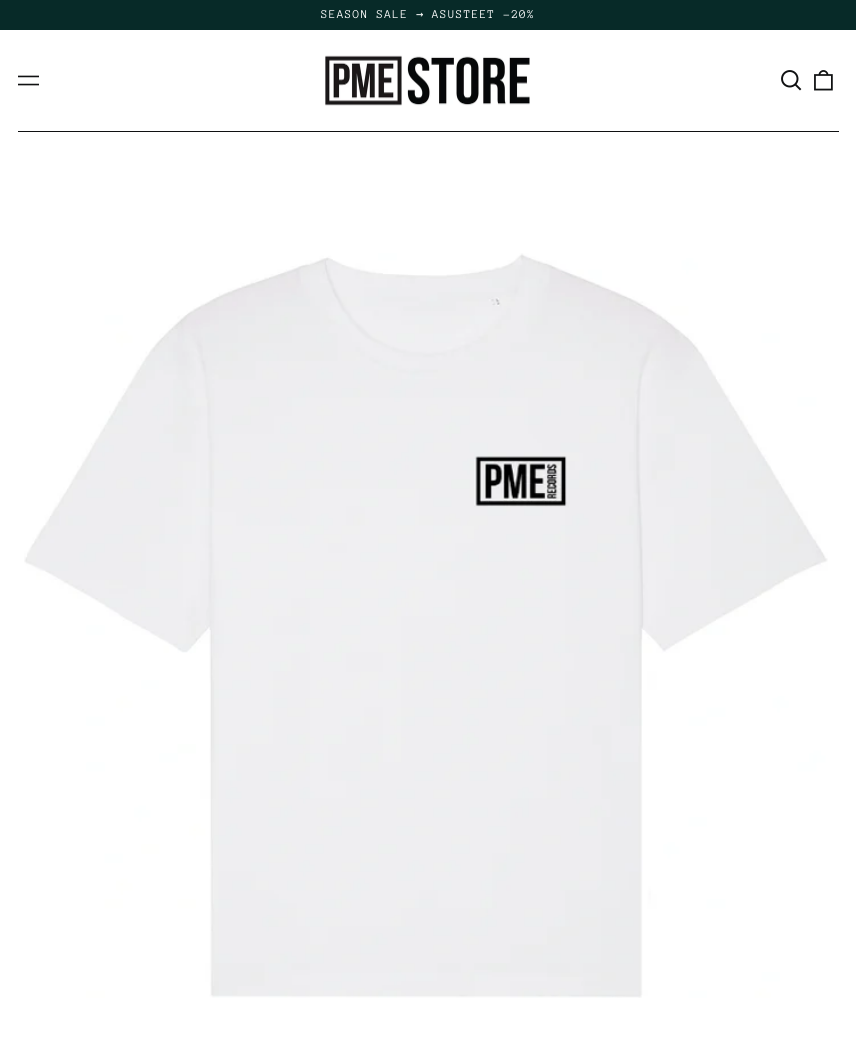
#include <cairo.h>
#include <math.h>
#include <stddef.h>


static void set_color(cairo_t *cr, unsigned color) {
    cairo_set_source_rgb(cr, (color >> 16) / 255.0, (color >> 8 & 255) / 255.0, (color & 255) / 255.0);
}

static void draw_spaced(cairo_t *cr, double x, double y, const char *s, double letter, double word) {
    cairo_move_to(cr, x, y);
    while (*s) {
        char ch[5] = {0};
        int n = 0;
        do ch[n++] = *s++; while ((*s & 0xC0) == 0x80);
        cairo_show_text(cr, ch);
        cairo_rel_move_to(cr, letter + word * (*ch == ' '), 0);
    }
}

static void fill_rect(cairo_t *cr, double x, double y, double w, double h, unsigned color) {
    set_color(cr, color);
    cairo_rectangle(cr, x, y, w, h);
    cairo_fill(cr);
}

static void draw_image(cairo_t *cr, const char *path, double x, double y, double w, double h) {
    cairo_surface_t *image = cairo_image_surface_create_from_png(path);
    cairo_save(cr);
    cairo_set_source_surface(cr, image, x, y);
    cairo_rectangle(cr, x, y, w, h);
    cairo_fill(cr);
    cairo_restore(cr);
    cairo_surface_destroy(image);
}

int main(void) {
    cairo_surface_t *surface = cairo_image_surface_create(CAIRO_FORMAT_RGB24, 856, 1059);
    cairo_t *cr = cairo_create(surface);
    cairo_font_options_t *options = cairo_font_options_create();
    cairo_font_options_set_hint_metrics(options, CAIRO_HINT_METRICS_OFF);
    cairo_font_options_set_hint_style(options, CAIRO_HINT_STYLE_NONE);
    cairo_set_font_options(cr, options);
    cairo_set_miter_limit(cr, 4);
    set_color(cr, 0xFFFFFF);
    cairo_paint(cr);
    fill_rect(cr, 0, 0, 856, 30, 0x072A28);
    cairo_select_font_face(cr, "Anonymous Pro", CAIRO_FONT_SLANT_NORMAL, CAIRO_FONT_WEIGHT_NORMAL);
    cairo_set_font_size(cr, 12.25);
    set_color(cr, 0xFFFFFF);
    draw_spaced(cr, 321, 18, "SEASON SALE", 1.25, 0);
    cairo_select_font_face(cr, "DejaVu Sans Mono", CAIRO_FONT_SLANT_NORMAL, CAIRO_FONT_WEIGHT_NORMAL);
    draw_spaced(cr, 416, 18, "→", 1.25, 0);
    cairo_select_font_face(cr, "Anonymous Pro", CAIRO_FONT_SLANT_NORMAL, CAIRO_FONT_WEIGHT_NORMAL);
    draw_spaced(cr, 432, 18, "ASUSTEET -20%", 1.25, 0);
    fill_rect(cr, 18, 131, 821, 1, 0x101112);
    draw_image(cr, "assets/img1.png", 18, 75, 21, 11);
    draw_image(cr, "assets/img2.png", 325, 55, 205, 51);
    draw_image(cr, "assets/img3.png", 781, 70, 21, 21);
    draw_image(cr, "assets/img4.png", 814, 70, 19, 21);
    draw_image(cr, "assets/img5.png", 24, 253, 804, 745);
    cairo_surface_write_to_png(surface, "output.png");
    cairo_font_options_destroy(options);
    cairo_destroy(cr);
    cairo_surface_destroy(surface);
    return 0;
}
